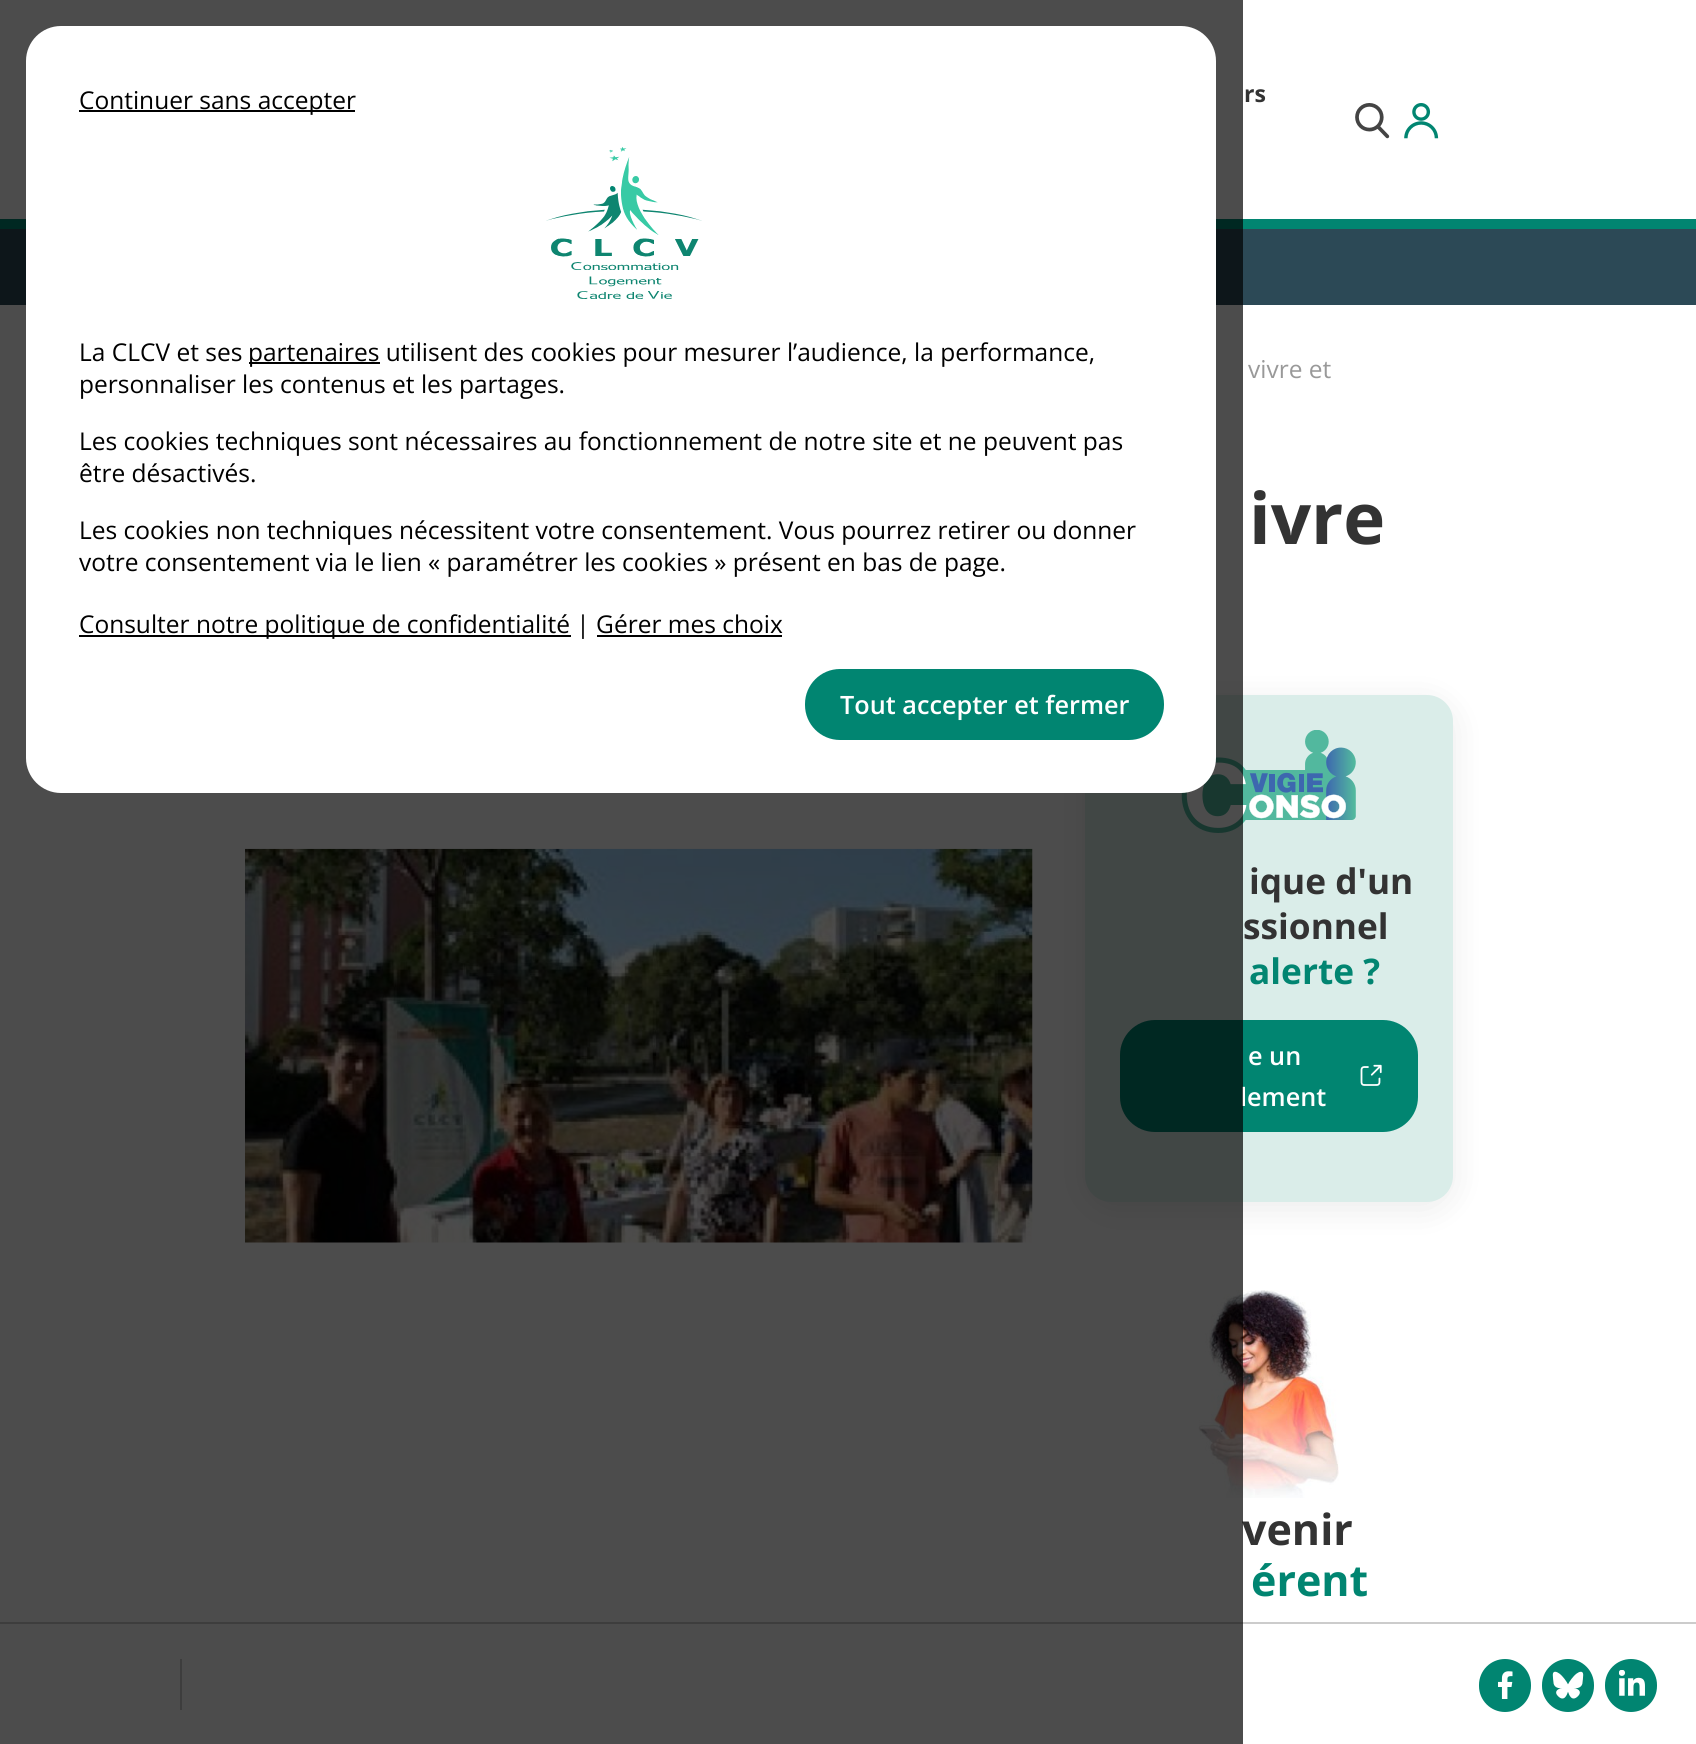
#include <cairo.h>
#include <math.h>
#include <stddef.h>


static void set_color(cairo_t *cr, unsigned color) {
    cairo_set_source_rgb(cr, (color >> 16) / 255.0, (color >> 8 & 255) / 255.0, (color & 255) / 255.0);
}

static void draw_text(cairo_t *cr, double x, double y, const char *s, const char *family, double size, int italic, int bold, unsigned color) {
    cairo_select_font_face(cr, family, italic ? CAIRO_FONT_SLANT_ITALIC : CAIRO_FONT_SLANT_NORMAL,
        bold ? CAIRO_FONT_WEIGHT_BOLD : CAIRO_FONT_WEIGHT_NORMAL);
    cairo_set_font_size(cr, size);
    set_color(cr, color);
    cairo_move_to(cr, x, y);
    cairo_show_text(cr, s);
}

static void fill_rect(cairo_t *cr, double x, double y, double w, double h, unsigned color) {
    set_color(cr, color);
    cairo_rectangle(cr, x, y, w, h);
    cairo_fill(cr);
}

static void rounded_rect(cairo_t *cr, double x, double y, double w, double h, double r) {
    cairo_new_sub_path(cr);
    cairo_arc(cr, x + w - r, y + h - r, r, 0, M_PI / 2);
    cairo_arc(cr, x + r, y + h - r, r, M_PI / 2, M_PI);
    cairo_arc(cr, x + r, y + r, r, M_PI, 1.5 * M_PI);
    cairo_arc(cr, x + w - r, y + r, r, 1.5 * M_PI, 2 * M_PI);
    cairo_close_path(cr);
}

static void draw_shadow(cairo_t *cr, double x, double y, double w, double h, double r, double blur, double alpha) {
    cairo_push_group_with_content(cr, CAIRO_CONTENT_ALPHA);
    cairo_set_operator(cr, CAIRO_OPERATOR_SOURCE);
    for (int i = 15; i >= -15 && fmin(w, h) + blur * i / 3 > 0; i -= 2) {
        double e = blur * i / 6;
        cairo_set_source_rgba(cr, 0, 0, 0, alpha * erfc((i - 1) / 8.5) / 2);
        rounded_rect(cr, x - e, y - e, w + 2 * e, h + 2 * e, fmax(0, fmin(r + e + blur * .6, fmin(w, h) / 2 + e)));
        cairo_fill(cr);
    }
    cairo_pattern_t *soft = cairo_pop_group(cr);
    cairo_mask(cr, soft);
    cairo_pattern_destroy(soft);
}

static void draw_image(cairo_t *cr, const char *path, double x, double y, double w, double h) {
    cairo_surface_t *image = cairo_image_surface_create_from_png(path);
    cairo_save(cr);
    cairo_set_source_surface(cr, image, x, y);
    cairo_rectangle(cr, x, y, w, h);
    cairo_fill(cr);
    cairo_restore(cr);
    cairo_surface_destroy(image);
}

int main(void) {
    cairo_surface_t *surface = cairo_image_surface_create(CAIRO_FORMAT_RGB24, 1696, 1744);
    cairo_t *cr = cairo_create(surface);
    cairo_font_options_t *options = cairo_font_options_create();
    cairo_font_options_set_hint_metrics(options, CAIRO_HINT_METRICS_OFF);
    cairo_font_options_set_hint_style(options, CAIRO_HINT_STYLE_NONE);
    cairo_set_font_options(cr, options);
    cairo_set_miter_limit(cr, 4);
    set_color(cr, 0xFFFFFF);
    cairo_paint(cr);
    draw_text(cr, 1244, 102, "rs", "Open Sans", 23, 0, 1, 0x333333);
    draw_image(cr, "assets/img1.png", 1355, 103, 35, 36);
    draw_image(cr, "assets/img2.png", 1404, 103, 35, 36);
    fill_rect(cr, 0, 229, 1696, 76, 0x2C4956);
    fill_rect(cr, 0, 219, 1696, 10, 0x018571);
    draw_image(cr, "assets/img4.png", 245, 848, 788, 395);
    fill_rect(cr, 0, 1622, 1696, 2, 0xCCCCCC);
    fill_rect(cr, 180, 1659, 2, 51, 0xCCCCCC);
    set_color(cr, 0x000000);
    draw_shadow(cr, 1085, 702, 368, 507, 26, 17.5, 0.08);
    set_color(cr, 0xDAEDE9);
    rounded_rect(cr, 1085, 695, 368, 507, 26);
    cairo_fill(cr);
    draw_image(cr, "assets/img8.png", 1181, 730, 175, 103);
    set_color(cr, 0x018571);
    rounded_rect(cr, 1120, 1020, 298, 112, 35);
    cairo_fill(cr);
    draw_text(cr, 1240, 1106, "lement", "Open Sans SemiBold", 25.25, 0, 0, 0xFFFFFF);
    draw_image(cr, "assets/img10.png", 1198, 1290, 141, 208);
    draw_text(cr, 1242, 1545, "venir", "Open Sans", 43, 0, 1, 0x333333);
    cairo_set_source_rgba(cr, 0, 0, 0, 0.7);
    cairo_rectangle(cr, 0, 0, 1243, 1744);
    cairo_fill(cr);
    set_color(cr, 0xFFFFFF);
    rounded_rect(cr, 26, 26, 1190, 767, 35);
    cairo_fill(cr);
    fill_rect(cr, 79, 110, 276, 2, 0x000000);
    draw_text(cr, 79, 109, "Continuer sans accepter", "Open Sans", 24.5, 0, 0, 0x000000);
    draw_image(cr, "assets/img3.png", 546, 147, 156, 152);
    draw_text(cr, 79, 361, "La CLCV et ses", "Open Sans", 24.5, 0, 0, 0x000000);
    fill_rect(cr, 249, 362, 131, 2, 0x000000);
    draw_text(cr, 248, 361, "partenaires utilisent des cookies pour mesurer l’audience, la performance,", "Open Sans", 24.5, 0, 0, 0x000000);
    draw_text(cr, 79, 393, "personnaliser les contenus et les partages.", "Open Sans", 24.5, 0, 0, 0x000000);
    draw_text(cr, 79, 450, "Les cookies techniques sont nécessaires au fonctionnement de notre site et ne peuvent pas", "Open Sans", 24.5, 0, 0, 0x000000);
    draw_text(cr, 79, 482, "être désactivés.", "Open Sans", 24.5, 0, 0, 0x000000);
    draw_text(cr, 79, 539, "Les cookies non techniques nécessitent votre consentement. Vous pourrez retirer ou donner", "Open Sans", 24.5, 0, 0, 0x000000);
    draw_text(cr, 79, 571, "votre consentement via le lien « paramétrer les cookies » présent en bas de page.", "Open Sans", 24.5, 0, 0, 0x000000);
    fill_rect(cr, 79, 635, 492, 2, 0x000000);
    draw_text(cr, 79, 633, "Consulter notre politique de confidentialité | Gérer mes choix", "Open Sans", 24.5, 0, 0, 0x000000);
    fill_rect(cr, 597, 635, 185, 2, 0x000000);
    set_color(cr, 0x018571);
    rounded_rect(cr, 805, 669, 359, 71, 35);
    cairo_fill(cr);
    draw_text(cr, 840, 714, "Tout accepter et fermer", "Open Sans SemiBold", 25.25, 0, 0, 0xFFFFFF);
    draw_text(cr, 1248, 378, "vivre et", "Open Sans", 24.5, 0, 0, 0x999999);
    draw_text(cr, 1249, 544, "ivre", "Open Sans", 71, 0, 1, 0x333333);
    set_color(cr, 0x018571);
    rounded_rect(cr, 1479, 1659, 52, 53, 26);
    cairo_fill(cr);
    draw_image(cr, "assets/img5.png", 1498, 1671, 15, 28);
    rounded_rect(cr, 1542, 1659, 52, 53, 26);
    cairo_fill(cr);
    draw_image(cr, "assets/img6.png", 1552, 1671, 32, 28);
    rounded_rect(cr, 1605, 1659, 52, 53, 26);
    cairo_fill(cr);
    draw_image(cr, "assets/img7.png", 1619, 1670, 26, 26);
    draw_text(cr, 1249, 894, "ique d'un", "Open Sans", 35.25, 0, 1, 0x333333);
    draw_text(cr, 1243, 939, "ssionnel", "Open Sans", 35.25, 0, 1, 0x333333);
    draw_text(cr, 1249, 984, "alerte ?", "Open Sans", 35.25, 0, 1, 0x018571);
    draw_text(cr, 1248, 1065, "e un", "Open Sans SemiBold", 25.25, 0, 0, 0xFFFFFF);
    draw_image(cr, "assets/img9.png", 1360, 1064, 22, 22);
    draw_text(cr, 1251, 1596, "érent", "Open Sans", 43, 0, 1, 0x018571);
    cairo_surface_write_to_png(surface, "output.png");
    cairo_font_options_destroy(options);
    cairo_destroy(cr);
    cairo_surface_destroy(surface);
    return 0;
}
